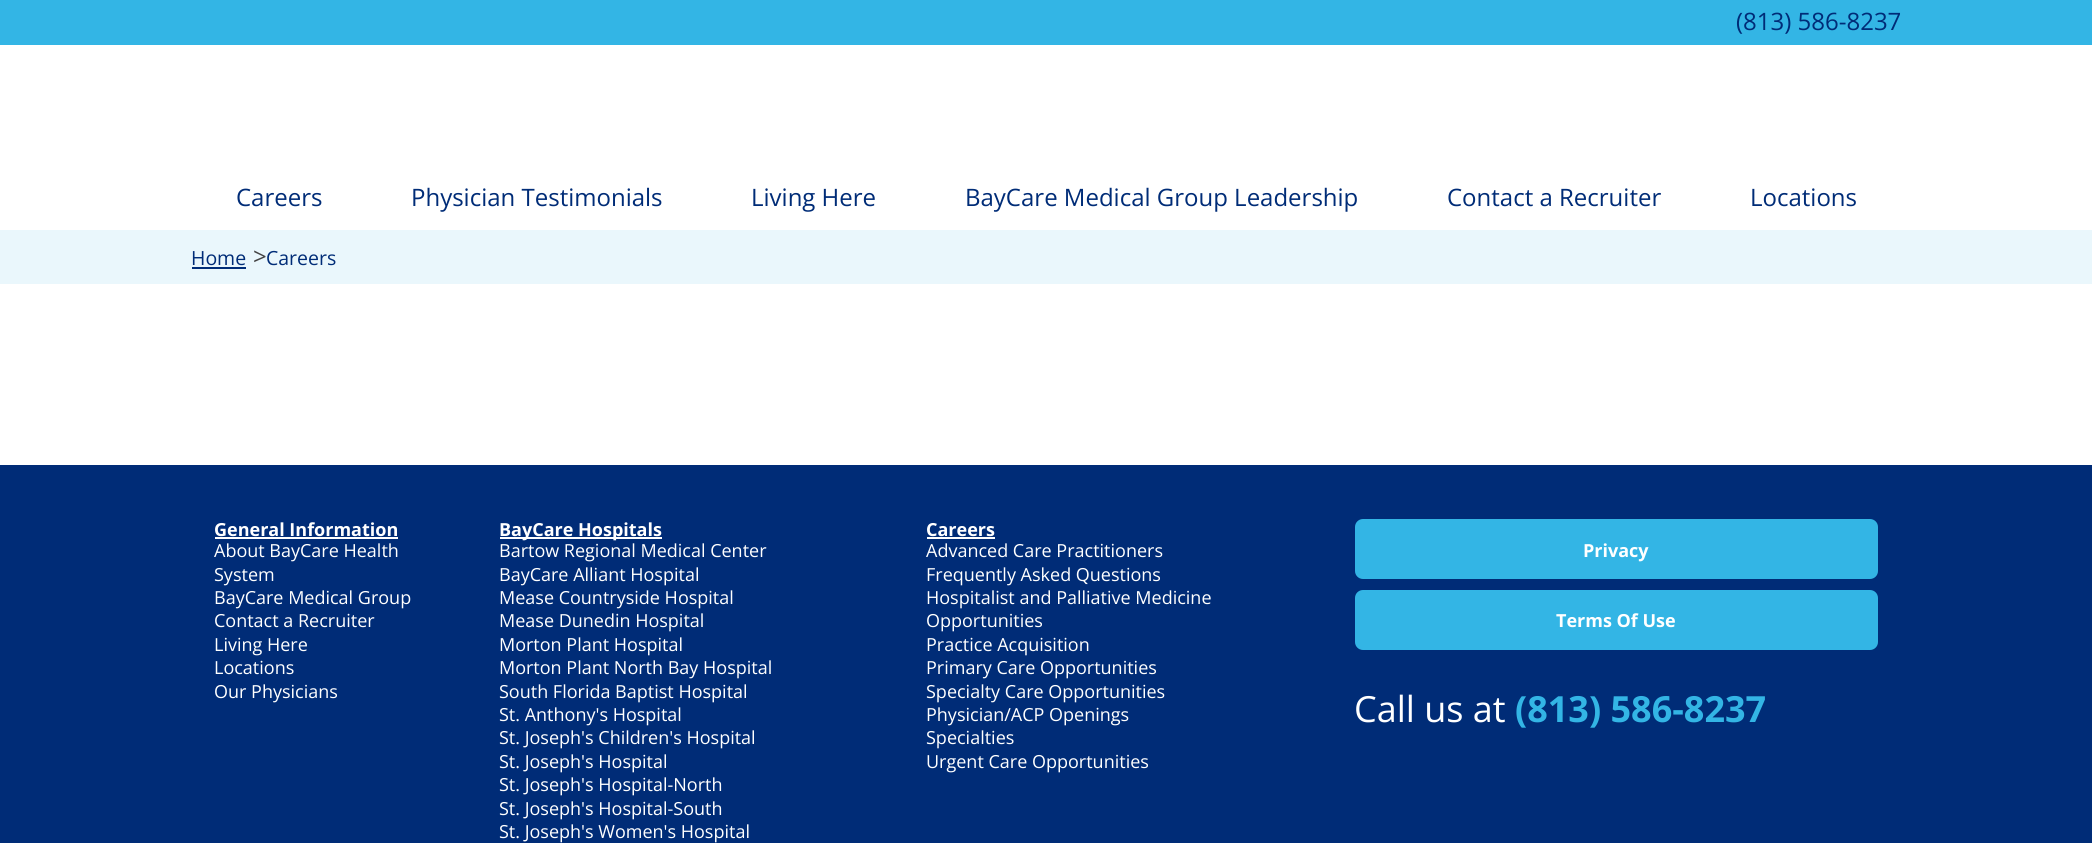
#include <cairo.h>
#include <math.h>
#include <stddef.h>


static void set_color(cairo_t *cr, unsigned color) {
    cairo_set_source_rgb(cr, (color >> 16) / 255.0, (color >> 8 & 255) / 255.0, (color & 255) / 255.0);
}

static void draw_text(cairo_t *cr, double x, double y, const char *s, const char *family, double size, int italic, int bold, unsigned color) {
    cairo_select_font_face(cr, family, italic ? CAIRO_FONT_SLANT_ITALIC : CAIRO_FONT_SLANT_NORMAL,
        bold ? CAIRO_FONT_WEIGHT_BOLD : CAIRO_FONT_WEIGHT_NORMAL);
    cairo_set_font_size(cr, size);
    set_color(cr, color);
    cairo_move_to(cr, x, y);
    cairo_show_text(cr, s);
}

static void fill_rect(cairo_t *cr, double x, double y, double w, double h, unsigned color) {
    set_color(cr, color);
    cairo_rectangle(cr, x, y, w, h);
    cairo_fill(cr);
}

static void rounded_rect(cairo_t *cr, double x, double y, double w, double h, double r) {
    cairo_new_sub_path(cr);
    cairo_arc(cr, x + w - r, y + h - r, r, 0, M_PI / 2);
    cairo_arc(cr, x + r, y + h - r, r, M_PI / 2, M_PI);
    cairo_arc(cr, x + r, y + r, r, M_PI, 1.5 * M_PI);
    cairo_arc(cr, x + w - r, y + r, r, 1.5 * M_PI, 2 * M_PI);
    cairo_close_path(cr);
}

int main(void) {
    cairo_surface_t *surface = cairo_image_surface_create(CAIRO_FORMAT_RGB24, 2092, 843);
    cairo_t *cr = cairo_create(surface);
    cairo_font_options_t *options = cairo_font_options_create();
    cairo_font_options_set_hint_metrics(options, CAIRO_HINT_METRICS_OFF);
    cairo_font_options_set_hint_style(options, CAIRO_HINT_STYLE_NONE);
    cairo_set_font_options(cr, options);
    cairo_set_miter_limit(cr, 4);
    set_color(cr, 0xFFFFFF);
    cairo_paint(cr);
    fill_rect(cr, 0, 0, 2092, 45, 0x33B5E5);
    draw_text(cr, 1736, 30, "(813) 586-8237", "Open Sans", 24, 0, 0, 0x002C77);
    draw_text(cr, 236, 206, "Careers", "Open Sans", 24, 0, 0, 0x002C77);
    draw_text(cr, 411, 206, "Physician Testimonials", "Open Sans", 24, 0, 0, 0x002C77);
    draw_text(cr, 751, 206, "Living Here", "Open Sans", 24, 0, 0, 0x002C77);
    draw_text(cr, 965, 206, "BayCare Medical Group Leadership", "Open Sans", 24, 0, 0, 0x002C77);
    draw_text(cr, 1447, 206, "Contact a Recruiter", "Open Sans", 24, 0, 0, 0x002C77);
    draw_text(cr, 1750, 206, "Locations", "Open Sans", 24, 0, 0, 0x002C77);
    fill_rect(cr, 0, 230, 2092, 54, 0xEAF7FC);
    draw_text(cr, 191, 265, "Home", "Open Sans", 19.5, 0, 0, 0x002C77);
    fill_rect(cr, 192, 267, 54, 2, 0x002C77);
    draw_text(cr, 253, 265, ">", "Open Sans", 24, 0, 0, 0x444444);
    draw_text(cr, 266, 265, "Careers", "Open Sans", 19.5, 0, 0, 0x002C77);
    fill_rect(cr, 0, 465, 2092, 378, 0x002C77);
    draw_text(cr, 214, 536, "General Information", "Open Sans", 18, 0, 1, 0xFFFFFF);
    fill_rect(cr, 215, 537, 183, 2, 0xFFFFFF);
    draw_text(cr, 214, 557, "About BayCare Health", "Open Sans", 18, 0, 0, 0xFFFFFF);
    draw_text(cr, 214, 581, "System", "Open Sans", 18, 0, 0, 0xFFFFFF);
    draw_text(cr, 214, 604, "BayCare Medical Group", "Open Sans", 18, 0, 0, 0xFFFFFF);
    draw_text(cr, 214, 627, "Contact a Recruiter", "Open Sans", 18, 0, 0, 0xFFFFFF);
    draw_text(cr, 214, 651, "Living Here", "Open Sans", 18, 0, 0, 0xFFFFFF);
    draw_text(cr, 214, 674, "Locations", "Open Sans", 18, 0, 0, 0xFFFFFF);
    draw_text(cr, 214, 698, "Our Physicians", "Open Sans", 18, 0, 0, 0xFFFFFF);
    fill_rect(cr, 500, 537, 162, 2, 0xFFFFFF);
    draw_text(cr, 499, 536, "BayCare Hospitals", "Open Sans", 18, 0, 1, 0xFFFFFF);
    draw_text(cr, 499, 557, "Bartow Regional Medical Center", "Open Sans", 18, 0, 0, 0xFFFFFF);
    draw_text(cr, 499, 581, "BayCare Alliant Hospital", "Open Sans", 18, 0, 0, 0xFFFFFF);
    draw_text(cr, 499, 604, "Mease Countryside Hospital", "Open Sans", 18, 0, 0, 0xFFFFFF);
    draw_text(cr, 499, 627, "Mease Dunedin Hospital", "Open Sans", 18, 0, 0, 0xFFFFFF);
    draw_text(cr, 499, 651, "Morton Plant Hospital", "Open Sans", 18, 0, 0, 0xFFFFFF);
    draw_text(cr, 499, 674, "Morton Plant North Bay Hospital", "Open Sans", 18, 0, 0, 0xFFFFFF);
    draw_text(cr, 499, 698, "South Florida Baptist Hospital", "Open Sans", 18, 0, 0, 0xFFFFFF);
    draw_text(cr, 499, 721, "St. Anthony's Hospital", "Open Sans", 18, 0, 0, 0xFFFFFF);
    draw_text(cr, 499, 744, "St. Joseph's Children's Hospital", "Open Sans", 18, 0, 0, 0xFFFFFF);
    draw_text(cr, 499, 768, "St. Joseph's Hospital", "Open Sans", 18, 0, 0, 0xFFFFFF);
    draw_text(cr, 499, 791, "St. Joseph's Hospital-North", "Open Sans", 18, 0, 0, 0xFFFFFF);
    draw_text(cr, 499, 815, "St. Joseph's Hospital-South", "Open Sans", 18, 0, 0, 0xFFFFFF);
    draw_text(cr, 499, 838, "St. Joseph's Women's Hospital", "Open Sans", 18, 0, 0, 0xFFFFFF);
    draw_text(cr, 926, 536, "Careers", "Open Sans", 18, 0, 1, 0xFFFFFF);
    fill_rect(cr, 927, 537, 68, 2, 0xFFFFFF);
    draw_text(cr, 926, 557, "Advanced Care Practitioners", "Open Sans", 18, 0, 0, 0xFFFFFF);
    draw_text(cr, 926, 581, "Frequently Asked Questions", "Open Sans", 18, 0, 0, 0xFFFFFF);
    draw_text(cr, 926, 604, "Hospitalist and Palliative Medicine", "Open Sans", 18, 0, 0, 0xFFFFFF);
    draw_text(cr, 926, 627, "Opportunities", "Open Sans", 18, 0, 0, 0xFFFFFF);
    draw_text(cr, 926, 651, "Practice Acquisition", "Open Sans", 18, 0, 0, 0xFFFFFF);
    draw_text(cr, 926, 674, "Primary Care Opportunities", "Open Sans", 18, 0, 0, 0xFFFFFF);
    draw_text(cr, 926, 698, "Specialty Care Opportunities", "Open Sans", 18, 0, 0, 0xFFFFFF);
    draw_text(cr, 926, 721, "Physician/ACP Openings", "Open Sans", 18, 0, 0, 0xFFFFFF);
    draw_text(cr, 926, 744, "Specialties", "Open Sans", 18, 0, 0, 0xFFFFFF);
    draw_text(cr, 926, 768, "Urgent Care Opportunities", "Open Sans", 18, 0, 0, 0xFFFFFF);
    set_color(cr, 0x33B5E5);
    rounded_rect(cr, 1355, 519, 523, 60, 8);
    cairo_fill(cr);
    draw_text(cr, 1583, 557, "Privacy", "Open Sans", 18, 0, 1, 0xFFFFFF);
    set_color(cr, 0x33B5E5);
    rounded_rect(cr, 1355, 590, 523, 60, 8);
    cairo_fill(cr);
    draw_text(cr, 1556, 627, "Terms Of Use", "Open Sans", 18, 0, 1, 0xFFFFFF);
    draw_text(cr, 1354, 722, "Call us at", "Open Sans", 36, 0, 0, 0xFFFFFF);
    draw_text(cr, 1515, 722, "(813) 586-8237", "Open Sans", 36, 0, 1, 0x33B5E5);
    cairo_surface_write_to_png(surface, "output.png");
    cairo_font_options_destroy(options);
    cairo_destroy(cr);
    cairo_surface_destroy(surface);
    return 0;
}
